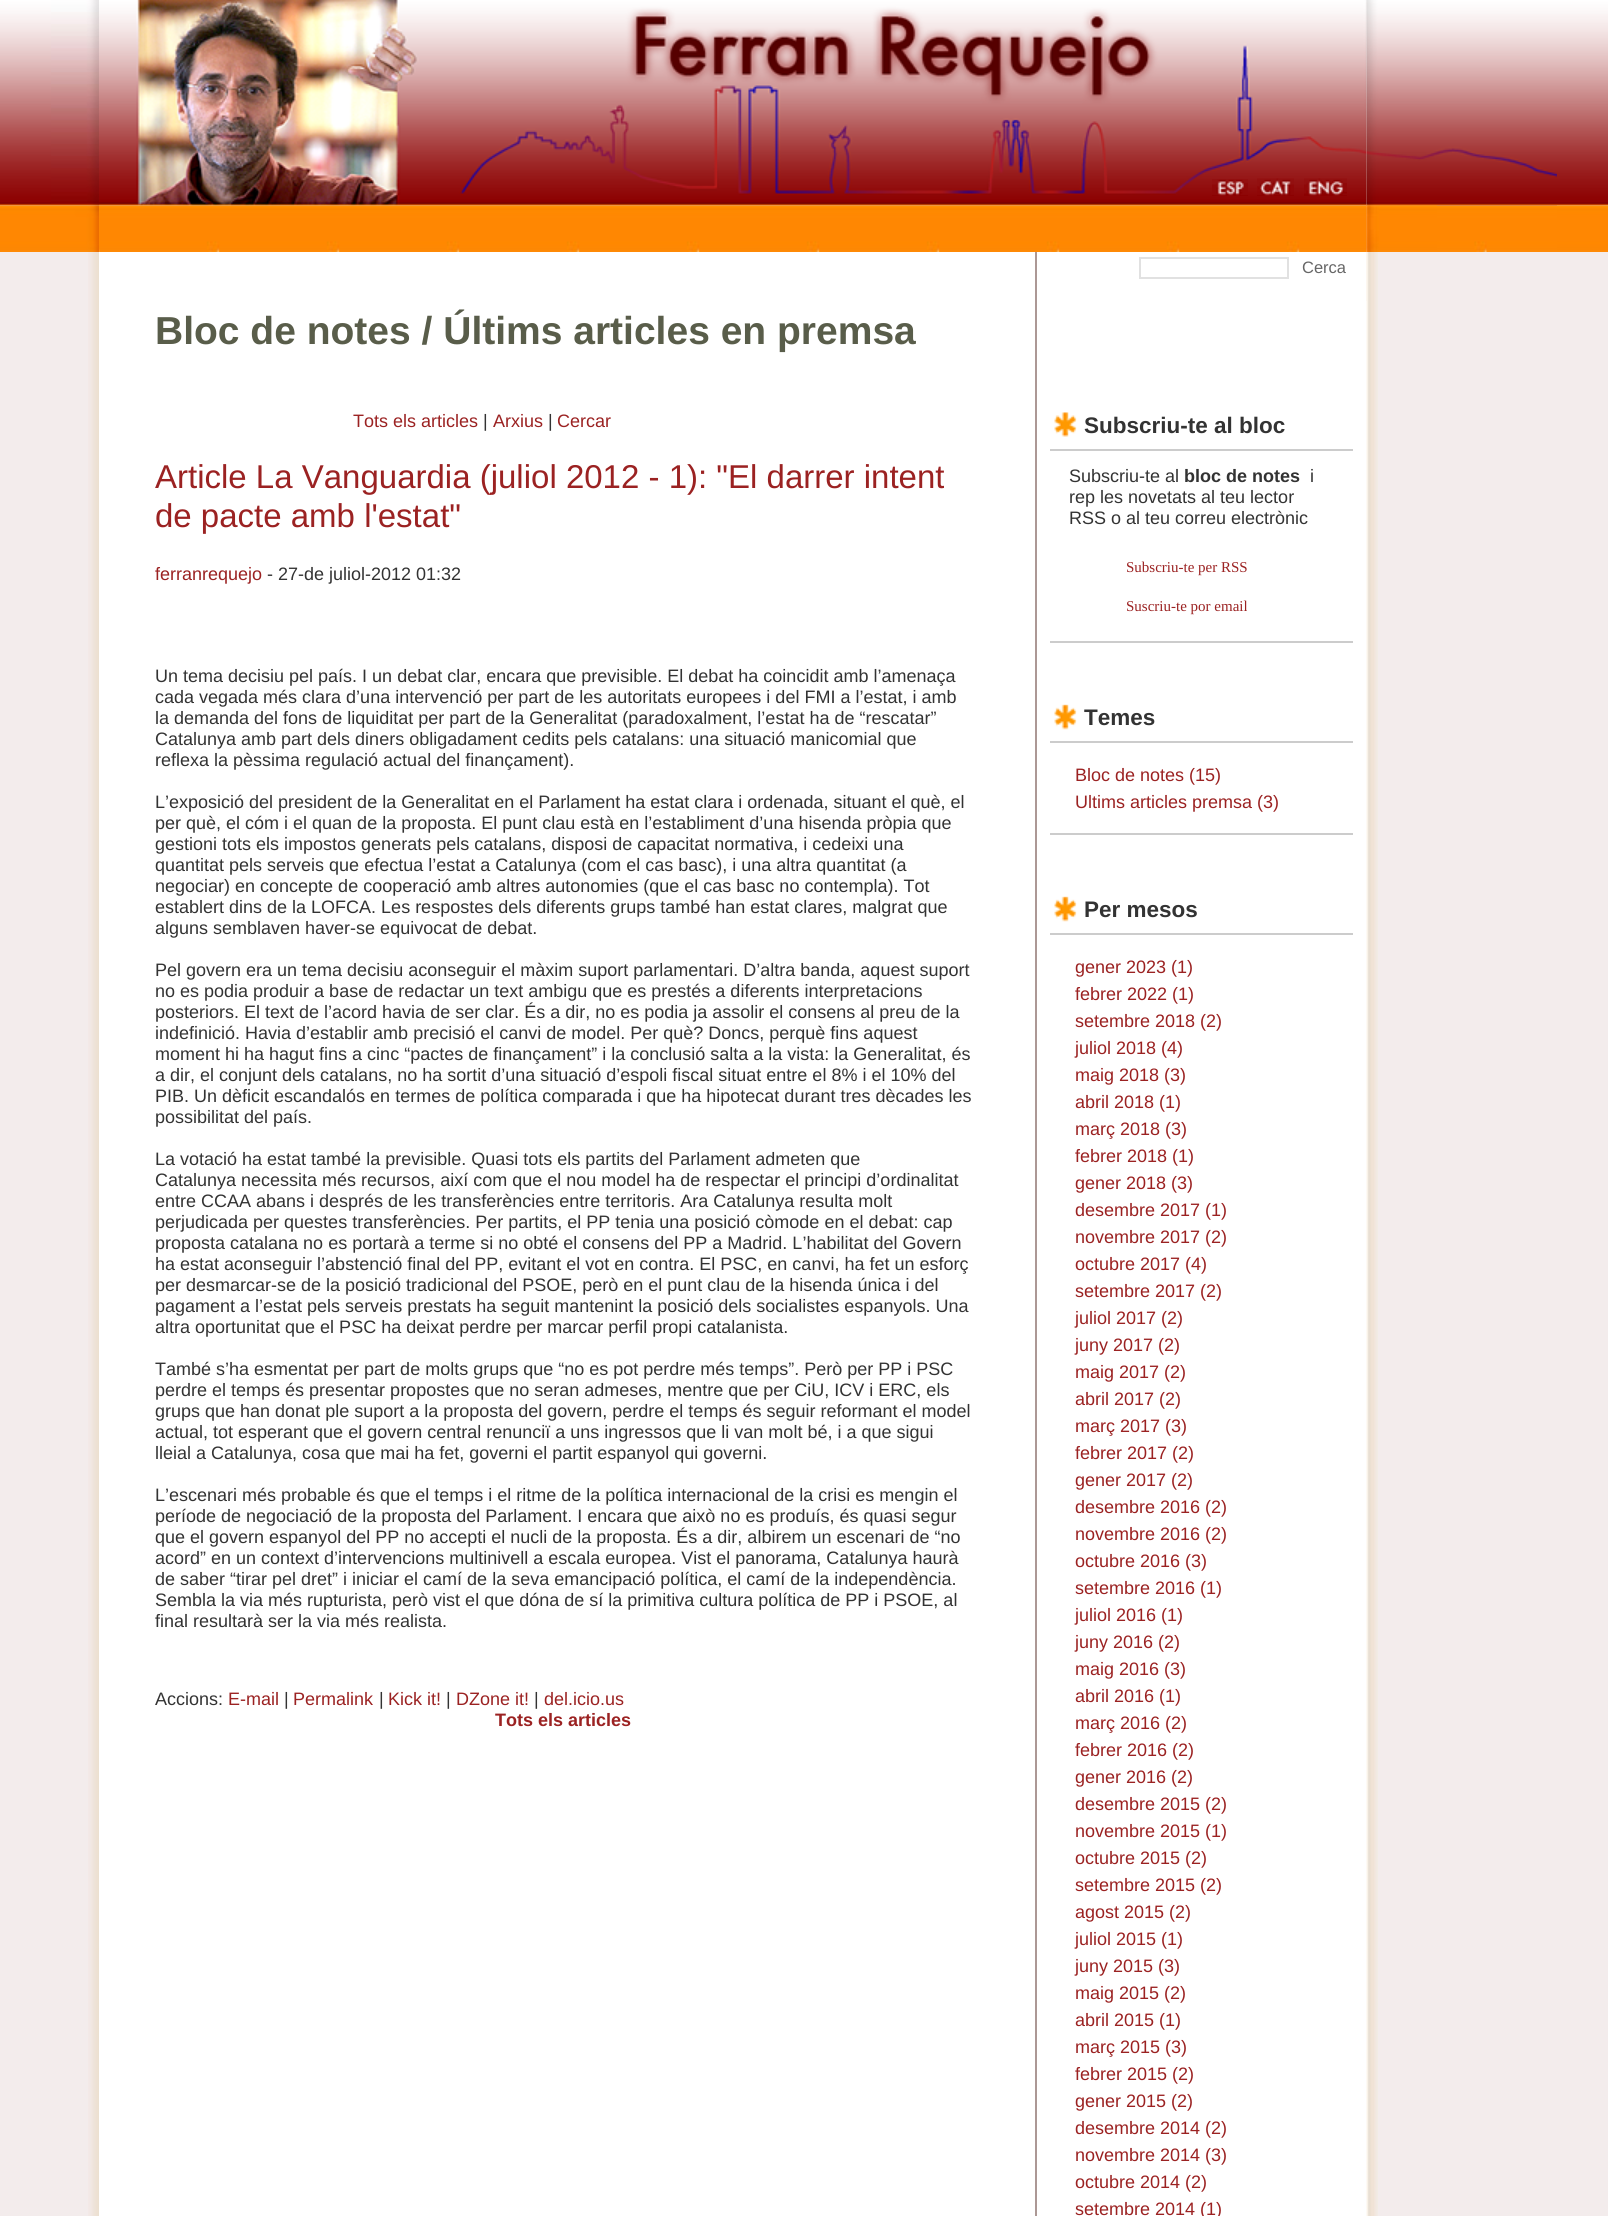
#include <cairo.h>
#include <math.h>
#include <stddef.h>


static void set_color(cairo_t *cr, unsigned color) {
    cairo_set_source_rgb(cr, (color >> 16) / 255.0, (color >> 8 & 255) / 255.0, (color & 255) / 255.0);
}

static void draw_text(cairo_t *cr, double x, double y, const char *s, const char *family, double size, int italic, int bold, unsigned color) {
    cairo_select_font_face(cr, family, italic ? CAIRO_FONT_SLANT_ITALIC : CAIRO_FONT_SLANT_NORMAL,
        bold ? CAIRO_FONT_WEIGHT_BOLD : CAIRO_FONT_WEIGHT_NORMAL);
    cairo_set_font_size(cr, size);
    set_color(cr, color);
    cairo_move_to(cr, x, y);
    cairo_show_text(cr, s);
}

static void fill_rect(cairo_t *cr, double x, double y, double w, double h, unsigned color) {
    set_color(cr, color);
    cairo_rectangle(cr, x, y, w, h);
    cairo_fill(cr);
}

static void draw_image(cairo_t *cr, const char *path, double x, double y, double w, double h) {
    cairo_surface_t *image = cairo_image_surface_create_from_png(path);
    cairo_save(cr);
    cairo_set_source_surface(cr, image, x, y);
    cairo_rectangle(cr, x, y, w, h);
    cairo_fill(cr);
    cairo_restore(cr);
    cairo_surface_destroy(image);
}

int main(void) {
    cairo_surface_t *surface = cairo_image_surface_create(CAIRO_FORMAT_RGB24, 1608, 2216);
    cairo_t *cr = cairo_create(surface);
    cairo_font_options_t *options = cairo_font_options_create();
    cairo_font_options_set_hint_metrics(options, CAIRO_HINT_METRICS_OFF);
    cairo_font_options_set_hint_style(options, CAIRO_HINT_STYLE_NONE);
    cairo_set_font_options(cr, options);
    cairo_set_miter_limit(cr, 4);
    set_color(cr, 0xF3ECEC);
    cairo_paint(cr);
    draw_image(cr, "assets/img1.png", 0, 0, 51, 206);
    draw_image(cr, "assets/img9.png", 88, 205, 11, 1);
    draw_image(cr, "assets/img2.png", 51, 0, 48, 206);
    draw_image(cr, "assets/img3.png", 99, 0, 1268, 206);
    draw_image(cr, "assets/img4.png", 1212, 179, 36, 17);
    draw_image(cr, "assets/img5.png", 1257, 178, 37, 18);
    draw_image(cr, "assets/img6.png", 1304, 178, 43, 18);
    draw_image(cr, "assets/img11.png", 99, 205, 1268, 47);
    draw_image(cr, "assets/img12.png", 1366, 205, 191, 47);
    draw_image(cr, "assets/img7.png", 1366, 0, 191, 206);
    draw_image(cr, "assets/img1.png", 1557, 0, 51, 206);
    draw_image(cr, "assets/img8.png", 0, 205, 51, 47);
    draw_image(cr, "assets/img10.png", 51, 205, 48, 47);
    draw_image(cr, "assets/img13.png", 1366, 205, 71, 47);
    draw_image(cr, "assets/img8.png", 1557, 205, 51, 47);
    draw_image(cr, "assets/img14.png", 88, 252, 11, 1964);
    fill_rect(cr, 99, 252, 1268, 1964, 0xFFFFFF);
    fill_rect(cr, 1035, 252, 2, 1964, 0xAC9895);
    cairo_rectangle(cr, 1140, 258, 148, 20);
    set_color(cr, 0xE1E1E1);
    cairo_stroke(cr);
    draw_text(cr, 1302, 273, "Cerca", "Liberation Sans", 16.5, 0, 0, 0x666666);
    draw_text(cr, 155, 344, "Bloc de notes / Últims articles en premsa", "Liberation Sans", 39, 0, 1, 0x595D4A);
    draw_text(cr, 353, 427, "Tots els articles", "Liberation Sans", 18, 0, 0, 0x9B2222);
    draw_text(cr, 483, 427, "|", "Liberation Sans", 18, 0, 0, 0x333333);
    draw_text(cr, 493, 427, "Arxius", "Liberation Sans", 18, 0, 0, 0x9B2222);
    draw_text(cr, 548, 427, "|", "Liberation Sans", 18, 0, 0, 0x333333);
    draw_text(cr, 557, 427, "Cercar", "Liberation Sans", 18, 0, 0, 0x9B2222);
    draw_text(cr, 155, 488, "Article La Vanguardia (juliol 2012 - 1): \"El darrer intent", "Liberation Sans", 33, 0, 0, 0x9B2222);
    draw_text(cr, 155, 527, "de pacte amb l'estat\"", "Liberation Sans", 33, 0, 0, 0x9B2222);
    draw_text(cr, 155, 580, "ferranrequejo", "Liberation Sans", 18, 0, 0, 0x9B2222);
    draw_text(cr, 267, 580, "- 27-de juliol-2012 01:32", "Liberation Sans", 18, 0, 0, 0x333333);
    draw_text(cr, 155, 682, "Un tema decisiu pel país. I un debat clar, encara que previsible. El debat ha coincidit amb l’amenaça", "Liberation Sans", 18, 0, 0, 0x333333);
    draw_text(cr, 155, 703, "cada vegada més clara d’una intervenció per part de les autoritats europees i del FMI a l’estat, i amb", "Liberation Sans", 18, 0, 0, 0x333333);
    draw_text(cr, 155, 724, "la demanda del fons de liquiditat per part de la Generalitat (paradoxalment, l’estat ha de “rescatar”", "Liberation Sans", 18, 0, 0, 0x333333);
    draw_text(cr, 155, 745, "Catalunya amb part dels diners obligadament cedits pels catalans: una situació manicomial que", "Liberation Sans", 18, 0, 0, 0x333333);
    draw_text(cr, 155, 766, "reflexa la pèssima regulació actual del finançament).", "Liberation Sans", 18, 0, 0, 0x333333);
    draw_text(cr, 155, 808, "L’exposició del president de la Generalitat en el Parlament ha estat clara i ordenada, situant el què, el", "Liberation Sans", 18, 0, 0, 0x333333);
    draw_text(cr, 155, 829, "per què, el cóm i el quan de la proposta. El punt clau està en l’establiment d’una hisenda pròpia que", "Liberation Sans", 18, 0, 0, 0x333333);
    draw_text(cr, 155, 850, "gestioni tots els impostos generats pels catalans, disposi de capacitat normativa, i cedeixi una", "Liberation Sans", 18, 0, 0, 0x333333);
    draw_text(cr, 155, 871, "quantitat pels serveis que efectua l’estat a Catalunya (com el cas basc), i una altra quantitat (a", "Liberation Sans", 18, 0, 0, 0x333333);
    draw_text(cr, 155, 892, "negociar) en concepte de cooperació amb altres autonomies (que el cas basc no contempla). Tot", "Liberation Sans", 18, 0, 0, 0x333333);
    draw_text(cr, 155, 913, "establert dins de la LOFCA. Les respostes dels diferents grups també han estat clares, malgrat que", "Liberation Sans", 18, 0, 0, 0x333333);
    draw_text(cr, 155, 934, "alguns semblaven haver-se equivocat de debat.", "Liberation Sans", 18, 0, 0, 0x333333);
    draw_text(cr, 155, 976, "Pel govern era un tema decisiu aconseguir el màxim suport parlamentari. D’altra banda, aquest suport", "Liberation Sans", 18, 0, 0, 0x333333);
    draw_text(cr, 155, 997, "no es podia produir a base de redactar un text ambigu que es prestés a diferents interpretacions", "Liberation Sans", 18, 0, 0, 0x333333);
    draw_text(cr, 155, 1018, "posteriors. El text de l’acord havia de ser clar. És a dir, no es podia ja assolir el consens al preu de la", "Liberation Sans", 18, 0, 0, 0x333333);
    draw_text(cr, 155, 1039, "indefinició. Havia d’establir amb precisió el canvi de model. Per què? Doncs, perquè fins aquest", "Liberation Sans", 18, 0, 0, 0x333333);
    draw_text(cr, 155, 1060, "moment hi ha hagut fins a cinc “pactes de finançament” i la conclusió salta a la vista: la Generalitat, és", "Liberation Sans", 18, 0, 0, 0x333333);
    draw_text(cr, 155, 1081, "a dir, el conjunt dels catalans, no ha sortit d’una situació d’espoli fiscal situat entre el 8% i el 10% del", "Liberation Sans", 18, 0, 0, 0x333333);
    draw_text(cr, 155, 1102, "PIB. Un dèficit escandalós en termes de política comparada i que ha hipotecat durant tres dècades les", "Liberation Sans", 18, 0, 0, 0x333333);
    draw_text(cr, 155, 1123, "possibilitat del país.", "Liberation Sans", 18, 0, 0, 0x333333);
    draw_text(cr, 155, 1165, "La votació ha estat també la previsible. Quasi tots els partits del Parlament admeten que", "Liberation Sans", 18, 0, 0, 0x333333);
    draw_text(cr, 155, 1186, "Catalunya necessita més recursos, així com que el nou model ha de respectar el principi d’ordinalitat", "Liberation Sans", 18, 0, 0, 0x333333);
    draw_text(cr, 155, 1207, "entre CCAA abans i després de les transferències entre territoris. Ara Catalunya resulta molt", "Liberation Sans", 18, 0, 0, 0x333333);
    draw_text(cr, 155, 1228, "perjudicada per questes transferències. Per partits, el PP tenia una posició còmode en el debat: cap", "Liberation Sans", 18, 0, 0, 0x333333);
    draw_text(cr, 155, 1249, "proposta catalana no es portarà a terme si no obté el consens del PP a Madrid. L’habilitat del Govern", "Liberation Sans", 18, 0, 0, 0x333333);
    draw_text(cr, 155, 1270, "ha estat aconseguir l’abstenció final del PP, evitant el vot en contra. El PSC, en canvi, ha fet un esforç", "Liberation Sans", 18, 0, 0, 0x333333);
    draw_text(cr, 155, 1291, "per desmarcar-se de la posició tradicional del PSOE, però en el punt clau de la hisenda única i del", "Liberation Sans", 18, 0, 0, 0x333333);
    draw_text(cr, 155, 1312, "pagament a l’estat pels serveis prestats ha seguit mantenint la posició dels socialistes espanyols. Una", "Liberation Sans", 18, 0, 0, 0x333333);
    draw_text(cr, 155, 1333, "altra oportunitat que el PSC ha deixat perdre per marcar perfil propi catalanista.", "Liberation Sans", 18, 0, 0, 0x333333);
    draw_text(cr, 155, 1375, "També s’ha esmentat per part de molts grups que “no es pot perdre més temps”. Però per PP i PSC", "Liberation Sans", 18, 0, 0, 0x333333);
    draw_text(cr, 155, 1396, "perdre el temps és presentar propostes que no seran admeses, mentre que per CiU, ICV i ERC, els", "Liberation Sans", 18, 0, 0, 0x333333);
    draw_text(cr, 155, 1417, "grups que han donat ple suport a la proposta del govern, perdre el temps és seguir reformant el model", "Liberation Sans", 18, 0, 0, 0x333333);
    draw_text(cr, 155, 1438, "actual, tot esperant que el govern central renunciï a uns ingressos que li van molt bé, i a que sigui", "Liberation Sans", 18, 0, 0, 0x333333);
    draw_text(cr, 155, 1459, "lleial a Catalunya, cosa que mai ha fet, governi el partit espanyol qui governi.", "Liberation Sans", 18, 0, 0, 0x333333);
    draw_text(cr, 155, 1501, "L’escenari més probable és que el temps i el ritme de la política internacional de la crisi es mengin el", "Liberation Sans", 18, 0, 0, 0x333333);
    draw_text(cr, 155, 1522, "període de negociació de la proposta del Parlament. I encara que això no es produís, és quasi segur", "Liberation Sans", 18, 0, 0, 0x333333);
    draw_text(cr, 155, 1543, "que el govern espanyol del PP no accepti el nucli de la proposta. És a dir, albirem un escenari de “no", "Liberation Sans", 18, 0, 0, 0x333333);
    draw_text(cr, 155, 1564, "acord” en un context d’intervencions multinivell a escala europea. Vist el panorama, Catalunya haurà", "Liberation Sans", 18, 0, 0, 0x333333);
    draw_text(cr, 155, 1585, "de saber “tirar pel dret” i iniciar el camí de la seva emancipació política, el camí de la independència.", "Liberation Sans", 18, 0, 0, 0x333333);
    draw_text(cr, 155, 1606, "Sembla la via més rupturista, però vist el que dóna de sí la primitiva cultura política de PP i PSOE, al", "Liberation Sans", 18, 0, 0, 0x333333);
    draw_text(cr, 155, 1627, "final resultarà ser la via més realista.", "Liberation Sans", 18, 0, 0, 0x333333);
    draw_text(cr, 155, 1705, "Accions:", "Liberation Sans", 18, 0, 0, 0x333333);
    draw_text(cr, 228, 1705, "E-mail", "Liberation Sans", 18, 0, 0, 0x9B2222);
    draw_text(cr, 284, 1705, "|", "Liberation Sans", 18, 0, 0, 0x333333);
    draw_text(cr, 293, 1705, "Permalink", "Liberation Sans", 18, 0, 0, 0x9B2222);
    draw_text(cr, 379, 1705, "|", "Liberation Sans", 18, 0, 0, 0x333333);
    draw_text(cr, 388, 1705, "Kick it!", "Liberation Sans", 18, 0, 0, 0x9B2222);
    draw_text(cr, 446, 1705, "|", "Liberation Sans", 18, 0, 0, 0x333333);
    draw_text(cr, 456, 1705, "DZone it!", "Liberation Sans", 18, 0, 0, 0x9B2222);
    draw_text(cr, 534, 1705, "|", "Liberation Sans", 18, 0, 0, 0x333333);
    draw_text(cr, 544, 1705, "del.icio.us", "Liberation Sans", 18, 0, 0, 0x9B2222);
    draw_text(cr, 495, 1726, "Tots els articles", "Liberation Sans", 18, 0, 1, 0x9B2222);
    draw_image(cr, "assets/img15.png", 1054, 412, 23, 25);
    draw_text(cr, 1084, 433, "Subscriu-te al bloc", "Liberation Sans", 22.5, 0, 1, 0x333333);
    fill_rect(cr, 1050, 449, 303, 2, 0xCCCCCC);
    draw_text(cr, 1069, 482, "Subscriu-te al", "Liberation Sans", 18, 0, 0, 0x333333);
    draw_text(cr, 1184, 482, "bloc de notes", "Liberation Sans", 18, 0, 1, 0x333333);
    draw_text(cr, 1310, 482, "i", "Liberation Sans", 18, 0, 0, 0x333333);
    draw_text(cr, 1069, 503, "rep les novetats al teu lector", "Liberation Sans", 18, 0, 0, 0x333333);
    draw_text(cr, 1069, 524, "RSS o al teu correu electrònic", "Liberation Sans", 18, 0, 0, 0x333333);
    draw_text(cr, 1126, 572, "Subscriu-te per RSS", "Liberation Serif", 15, 0, 0, 0x9B2222);
    draw_text(cr, 1126, 611, "Suscriu-te por email", "Liberation Serif", 15, 0, 0, 0x9B2222);
    fill_rect(cr, 1050, 641, 303, 2, 0xCCCCCC);
    draw_image(cr, "assets/img16.png", 1054, 704, 23, 26);
    draw_text(cr, 1084, 725, "Temes", "Liberation Sans", 22.5, 0, 1, 0x333333);
    fill_rect(cr, 1050, 741, 303, 2, 0xCCCCCC);
    draw_text(cr, 1075, 781, "Bloc de notes (15)", "Liberation Sans", 18, 0, 0, 0x9B2222);
    draw_text(cr, 1075, 808, "Ultims articles premsa (3)", "Liberation Sans", 18, 0, 0, 0x9B2222);
    fill_rect(cr, 1050, 833, 303, 2, 0xCCCCCC);
    draw_image(cr, "assets/img16.png", 1054, 896, 23, 26);
    draw_text(cr, 1084, 917, "Per mesos", "Liberation Sans", 22.5, 0, 1, 0x333333);
    fill_rect(cr, 1050, 933, 303, 2, 0xCCCCCC);
    draw_text(cr, 1075, 973, "gener 2023 (1)", "Liberation Sans", 18, 0, 0, 0x9B2222);
    draw_text(cr, 1075, 1000, "febrer 2022 (1)", "Liberation Sans", 18, 0, 0, 0x9B2222);
    draw_text(cr, 1075, 1027, "setembre 2018 (2)", "Liberation Sans", 18, 0, 0, 0x9B2222);
    draw_text(cr, 1075, 1054, "juliol 2018 (4)", "Liberation Sans", 18, 0, 0, 0x9B2222);
    draw_text(cr, 1075, 1081, "maig 2018 (3)", "Liberation Sans", 18, 0, 0, 0x9B2222);
    draw_text(cr, 1075, 1108, "abril 2018 (1)", "Liberation Sans", 18, 0, 0, 0x9B2222);
    draw_text(cr, 1075, 1135, "març 2018 (3)", "Liberation Sans", 18, 0, 0, 0x9B2222);
    draw_text(cr, 1075, 1162, "febrer 2018 (1)", "Liberation Sans", 18, 0, 0, 0x9B2222);
    draw_text(cr, 1075, 1189, "gener 2018 (3)", "Liberation Sans", 18, 0, 0, 0x9B2222);
    draw_text(cr, 1075, 1216, "desembre 2017 (1)", "Liberation Sans", 18, 0, 0, 0x9B2222);
    draw_text(cr, 1075, 1243, "novembre 2017 (2)", "Liberation Sans", 18, 0, 0, 0x9B2222);
    draw_text(cr, 1075, 1270, "octubre 2017 (4)", "Liberation Sans", 18, 0, 0, 0x9B2222);
    draw_text(cr, 1075, 1297, "setembre 2017 (2)", "Liberation Sans", 18, 0, 0, 0x9B2222);
    draw_text(cr, 1075, 1324, "juliol 2017 (2)", "Liberation Sans", 18, 0, 0, 0x9B2222);
    draw_text(cr, 1075, 1351, "juny 2017 (2)", "Liberation Sans", 18, 0, 0, 0x9B2222);
    draw_text(cr, 1075, 1378, "maig 2017 (2)", "Liberation Sans", 18, 0, 0, 0x9B2222);
    draw_text(cr, 1075, 1405, "abril 2017 (2)", "Liberation Sans", 18, 0, 0, 0x9B2222);
    draw_text(cr, 1075, 1432, "març 2017 (3)", "Liberation Sans", 18, 0, 0, 0x9B2222);
    draw_text(cr, 1075, 1459, "febrer 2017 (2)", "Liberation Sans", 18, 0, 0, 0x9B2222);
    draw_text(cr, 1075, 1486, "gener 2017 (2)", "Liberation Sans", 18, 0, 0, 0x9B2222);
    draw_text(cr, 1075, 1513, "desembre 2016 (2)", "Liberation Sans", 18, 0, 0, 0x9B2222);
    draw_text(cr, 1075, 1540, "novembre 2016 (2)", "Liberation Sans", 18, 0, 0, 0x9B2222);
    draw_text(cr, 1075, 1567, "octubre 2016 (3)", "Liberation Sans", 18, 0, 0, 0x9B2222);
    draw_text(cr, 1075, 1594, "setembre 2016 (1)", "Liberation Sans", 18, 0, 0, 0x9B2222);
    draw_text(cr, 1075, 1621, "juliol 2016 (1)", "Liberation Sans", 18, 0, 0, 0x9B2222);
    draw_text(cr, 1075, 1648, "juny 2016 (2)", "Liberation Sans", 18, 0, 0, 0x9B2222);
    draw_text(cr, 1075, 1675, "maig 2016 (3)", "Liberation Sans", 18, 0, 0, 0x9B2222);
    draw_text(cr, 1075, 1702, "abril 2016 (1)", "Liberation Sans", 18, 0, 0, 0x9B2222);
    draw_text(cr, 1075, 1729, "març 2016 (2)", "Liberation Sans", 18, 0, 0, 0x9B2222);
    draw_text(cr, 1075, 1756, "febrer 2016 (2)", "Liberation Sans", 18, 0, 0, 0x9B2222);
    draw_text(cr, 1075, 1783, "gener 2016 (2)", "Liberation Sans", 18, 0, 0, 0x9B2222);
    draw_text(cr, 1075, 1810, "desembre 2015 (2)", "Liberation Sans", 18, 0, 0, 0x9B2222);
    draw_text(cr, 1075, 1837, "novembre 2015 (1)", "Liberation Sans", 18, 0, 0, 0x9B2222);
    draw_text(cr, 1075, 1864, "octubre 2015 (2)", "Liberation Sans", 18, 0, 0, 0x9B2222);
    draw_text(cr, 1075, 1891, "setembre 2015 (2)", "Liberation Sans", 18, 0, 0, 0x9B2222);
    draw_text(cr, 1075, 1918, "agost 2015 (2)", "Liberation Sans", 18, 0, 0, 0x9B2222);
    draw_text(cr, 1075, 1945, "juliol 2015 (1)", "Liberation Sans", 18, 0, 0, 0x9B2222);
    draw_text(cr, 1075, 1972, "juny 2015 (3)", "Liberation Sans", 18, 0, 0, 0x9B2222);
    draw_text(cr, 1075, 1999, "maig 2015 (2)", "Liberation Sans", 18, 0, 0, 0x9B2222);
    draw_text(cr, 1075, 2026, "abril 2015 (1)", "Liberation Sans", 18, 0, 0, 0x9B2222);
    draw_text(cr, 1075, 2053, "març 2015 (3)", "Liberation Sans", 18, 0, 0, 0x9B2222);
    draw_text(cr, 1075, 2080, "febrer 2015 (2)", "Liberation Sans", 18, 0, 0, 0x9B2222);
    draw_text(cr, 1075, 2107, "gener 2015 (2)", "Liberation Sans", 18, 0, 0, 0x9B2222);
    draw_text(cr, 1075, 2134, "desembre 2014 (2)", "Liberation Sans", 18, 0, 0, 0x9B2222);
    draw_text(cr, 1075, 2161, "novembre 2014 (3)", "Liberation Sans", 18, 0, 0, 0x9B2222);
    draw_text(cr, 1075, 2188, "octubre 2014 (2)", "Liberation Sans", 18, 0, 0, 0x9B2222);
    draw_text(cr, 1075, 2215, "setembre 2014 (1)", "Liberation Sans", 18, 0, 0, 0x9B2222);
    draw_image(cr, "assets/img17.png", 1366, 252, 12, 1964);
    fill_rect(cr, 1366, 252, 1, 49, 0xFDF7F0);
    cairo_surface_write_to_png(surface, "output.png");
    cairo_font_options_destroy(options);
    cairo_destroy(cr);
    cairo_surface_destroy(surface);
    return 0;
}
